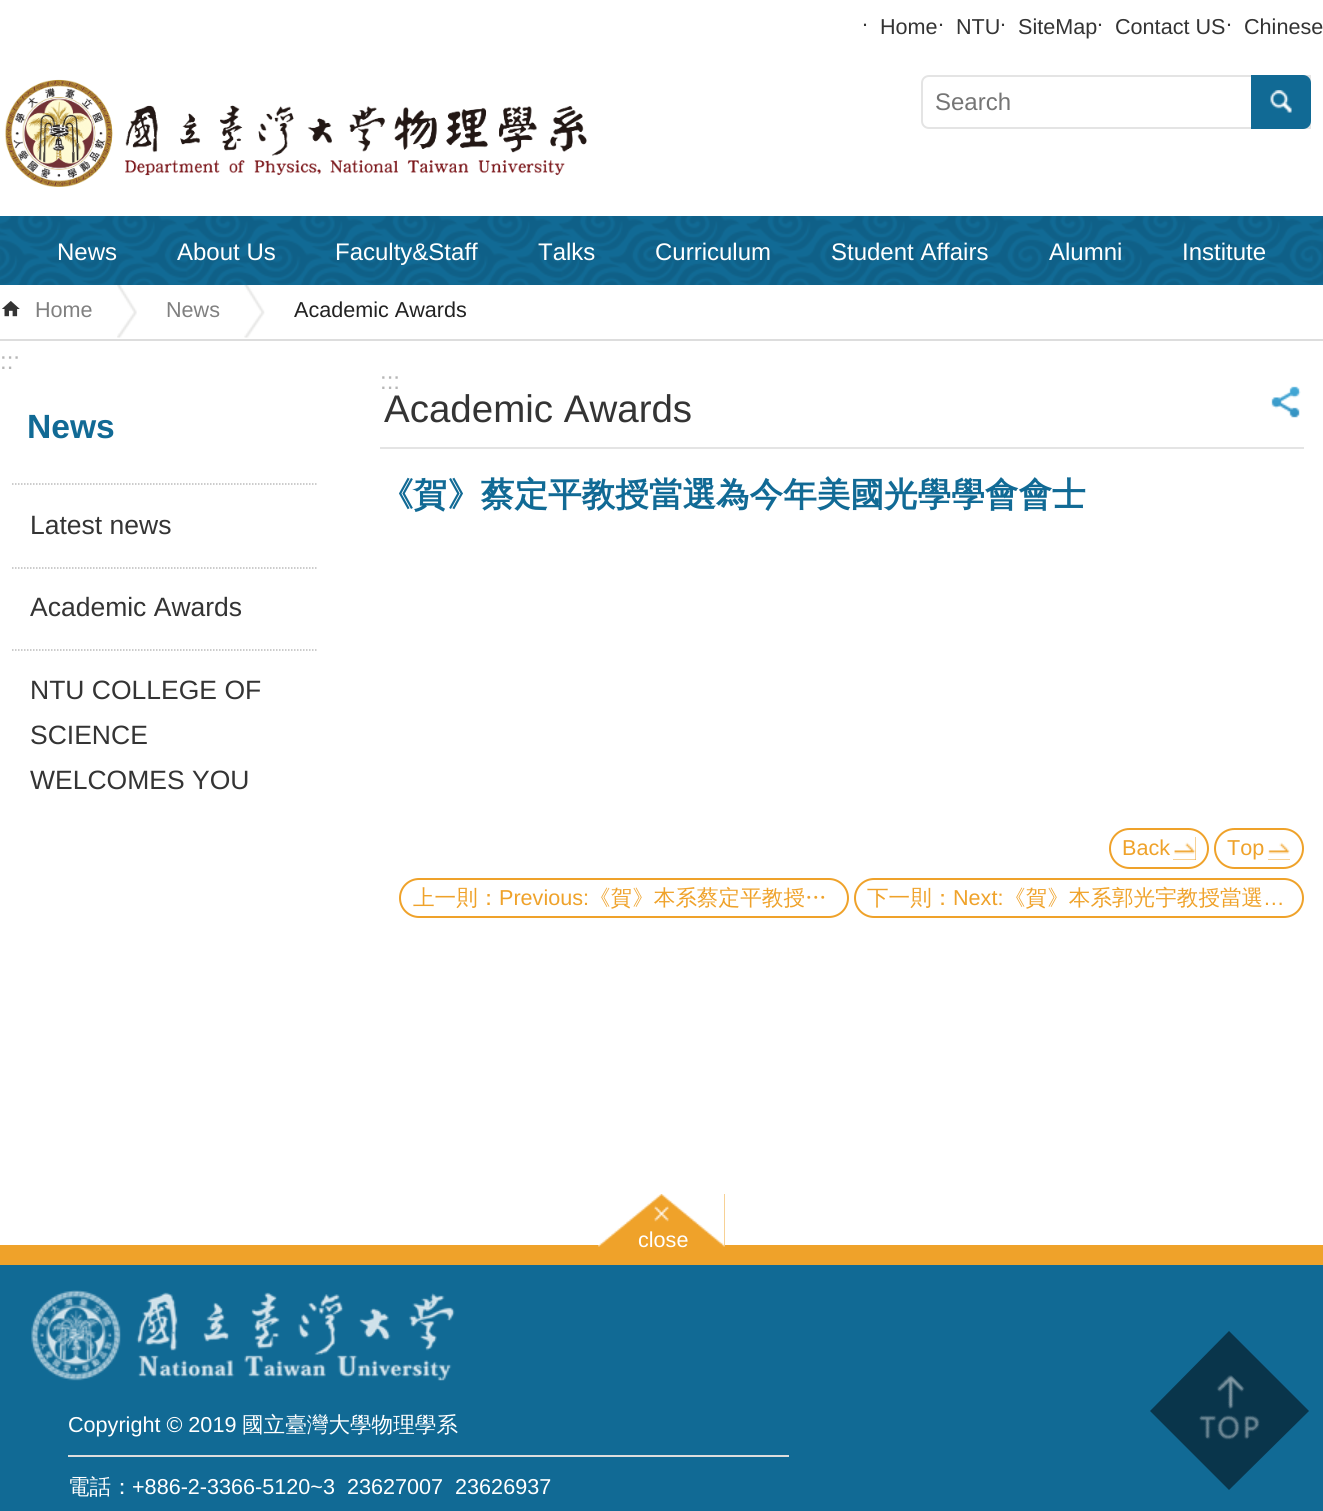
#include <cairo.h>
#include <math.h>
#include <stddef.h>


static void set_color(cairo_t *cr, unsigned color) {
    cairo_set_source_rgb(cr, (color >> 16) / 255.0, (color >> 8 & 255) / 255.0, (color & 255) / 255.0);
}

static void draw_text(cairo_t *cr, double x, double y, const char *s, const char *family, double size, int italic, int bold, unsigned color) {
    cairo_select_font_face(cr, family, italic ? CAIRO_FONT_SLANT_ITALIC : CAIRO_FONT_SLANT_NORMAL,
        bold ? CAIRO_FONT_WEIGHT_BOLD : CAIRO_FONT_WEIGHT_NORMAL);
    cairo_set_font_size(cr, size);
    set_color(cr, color);
    cairo_move_to(cr, x, y);
    cairo_show_text(cr, s);
}

static void fill_rect(cairo_t *cr, double x, double y, double w, double h, unsigned color) {
    set_color(cr, color);
    cairo_rectangle(cr, x, y, w, h);
    cairo_fill(cr);
}

static void rounded_rect(cairo_t *cr, double x, double y, double w, double h, double r) {
    cairo_new_sub_path(cr);
    cairo_arc(cr, x + w - r, y + h - r, r, 0, M_PI / 2);
    cairo_arc(cr, x + r, y + h - r, r, M_PI / 2, M_PI);
    cairo_arc(cr, x + r, y + r, r, M_PI, 1.5 * M_PI);
    cairo_arc(cr, x + w - r, y + r, r, 1.5 * M_PI, 2 * M_PI);
    cairo_close_path(cr);
}

static void draw_image(cairo_t *cr, const char *path, double x, double y, double w, double h) {
    cairo_surface_t *image = cairo_image_surface_create_from_png(path);
    cairo_save(cr);
    cairo_set_source_surface(cr, image, x, y);
    cairo_rectangle(cr, x, y, w, h);
    cairo_fill(cr);
    cairo_restore(cr);
    cairo_surface_destroy(image);
}

int main(void) {
    cairo_surface_t *surface = cairo_image_surface_create(CAIRO_FORMAT_RGB24, 1323, 1511);
    cairo_t *cr = cairo_create(surface);
    cairo_font_options_t *options = cairo_font_options_create();
    cairo_font_options_set_hint_metrics(options, CAIRO_HINT_METRICS_OFF);
    cairo_font_options_set_hint_style(options, CAIRO_HINT_STYLE_NONE);
    cairo_set_font_options(cr, options);
    cairo_set_miter_limit(cr, 4);
    set_color(cr, 0xFFFFFF);
    cairo_paint(cr);
    draw_text(cr, 862, 26, ".", "Liberation Sans", 21.6, 0, 0, 0x343434);
    draw_text(cr, 880, 34, "Home", "Liberation Sans", 21.6, 0, 0, 0x343434);
    draw_text(cr, 938, 26, ".", "Liberation Sans", 21.6, 0, 0, 0x343434);
    draw_text(cr, 956, 34, "NTU", "Liberation Sans", 21.6, 0, 0, 0x343434);
    draw_text(cr, 1000, 26, ".", "Liberation Sans", 21.6, 0, 0, 0x343434);
    draw_text(cr, 1018, 34, "SiteMap", "Liberation Sans", 21.6, 0, 0, 0x343434);
    draw_text(cr, 1097, 26, ".", "Liberation Sans", 21.6, 0, 0, 0x343434);
    draw_text(cr, 1115, 34, "Contact US", "Liberation Sans", 21.6, 0, 0, 0x343434);
    draw_text(cr, 1226, 26, ".", "Liberation Sans", 21.6, 0, 0, 0x343434);
    draw_text(cr, 1244, 34, "Chinese", "Liberation Sans", 21.6, 0, 0, 0x343434);
    draw_image(cr, "assets/img1.png", 5, 79, 582, 108);
    cairo_new_path(cr);
    cairo_move_to(cr, 929, 76);
    cairo_line_to(cr, 1310, 76);
    cairo_line_to(cr, 1310, 128);
    cairo_line_to(cr, 929, 128);
    cairo_curve_to(cr, 925, 128, 922, 125, 922, 121);
    cairo_line_to(cr, 922, 83);
    cairo_curve_to(cr, 922, 79, 925, 76, 929, 76);
    cairo_close_path(cr);
    set_color(cr, 0xE4E4E4);
    cairo_stroke(cr);
    draw_text(cr, 935, 110, "Search", "Liberation Sans", 24, 0, 0, 0x757575);
    set_color(cr, 0x116A95);
    cairo_new_path(cr);
    cairo_move_to(cr, 1251, 75);
    cairo_line_to(cr, 1303, 75);
    cairo_curve_to(cr, 1307.5, 75, 1311, 78.5, 1311, 83);
    cairo_line_to(cr, 1311, 121);
    cairo_curve_to(cr, 1311, 125.5, 1307.5, 129, 1303, 129);
    cairo_line_to(cr, 1251, 129);
    cairo_close_path(cr);
    cairo_fill(cr);
    draw_image(cr, "assets/img2.png", 1270, 90, 22, 23);
    fill_rect(cr, 0, 216, 1323, 69, 0x116A95);
    draw_image(cr, "assets/img3.png", 0, 216, 1323, 69);
    draw_text(cr, 57, 260, "News", "Liberation Sans", 24, 0, 0, 0xFFFFFF);
    draw_text(cr, 177, 260, "About Us", "Liberation Sans", 24, 0, 0, 0xFFFFFF);
    draw_text(cr, 335, 260, "Faculty&Staff", "Liberation Sans", 24, 0, 0, 0xFFFFFF);
    draw_text(cr, 538, 260, "Talks", "Liberation Sans", 24, 0, 0, 0xFFFFFF);
    draw_text(cr, 655, 260, "Curriculum", "Liberation Sans", 24, 0, 0, 0xFFFFFF);
    draw_text(cr, 831, 260, "Student Affairs", "Liberation Sans", 24, 0, 0, 0xFFFFFF);
    draw_text(cr, 1049, 260, "Alumni", "Liberation Sans", 24, 0, 0, 0xFFFFFF);
    draw_text(cr, 1182, 260, "Institute", "Liberation Sans", 24, 0, 0, 0xFFFFFF);
    fill_rect(cr, 0, 339, 1323, 2, 0xDDDDDD);
    draw_image(cr, "assets/img4.png", 2, 301, 18, 16);
    draw_text(cr, 35, 317, "Home", "Liberation Sans", 21.6, 0, 0, 0x808080);
    draw_image(cr, "assets/img5.png", 117, 285, 20, 53);
    draw_text(cr, 166, 317, "News", "Liberation Sans", 21.6, 0, 0, 0x808080);
    draw_image(cr, "assets/img6.png", 244, 285, 21, 53);
    draw_text(cr, 294, 317, "Academic Awards", "Liberation Sans", 21.6, 0, 0, 0x222222);
    draw_text(cr, 0, 369, ":::", "Liberation Sans", 24, 0, 0, 0xB6B6B6);
    set_color(cr, 0xFFFFFF);
    cairo_new_path(cr);
    cairo_move_to(cr, 12, 363);
    cairo_line_to(cr, 318, 363);
    cairo_line_to(cr, 318, 817);
    cairo_curve_to(cr, 318, 820, 316, 822, 313, 822);
    cairo_line_to(cr, 17, 822);
    cairo_curve_to(cr, 14, 822, 12, 820, 12, 817);
    cairo_close_path(cr);
    cairo_fill(cr);
    cairo_new_path(cr);
    cairo_move_to(cr, 12, 484);
    cairo_line_to(cr, 318, 484);
    set_color(cr, 0xBBBBBB);
    cairo_set_line_width(cr, 1.5);
    cairo_set_dash(cr, (double[]){1.5, 1.5}, 2, 0);
    cairo_stroke(cr);
    draw_text(cr, 27, 438, "News", "Liberation Sans", 33.6, 0, 1, 0x116A95);
    draw_text(cr, 30, 534, "Latest news", "Liberation Sans", 26.5, 0, 0, 0x343434);
    cairo_new_path(cr);
    cairo_move_to(cr, 12, 568);
    cairo_line_to(cr, 318, 568);
    set_color(cr, 0xBBBBBB);
    cairo_stroke(cr);
    draw_text(cr, 30, 616, "Academic Awards", "Liberation Sans", 26.5, 0, 0, 0x343434);
    cairo_new_path(cr);
    cairo_move_to(cr, 12, 650);
    cairo_line_to(cr, 318, 650);
    set_color(cr, 0xBBBBBB);
    cairo_stroke(cr);
    draw_text(cr, 30, 699, "NTU COLLEGE OF", "Liberation Sans", 26.5, 0, 0, 0x343434);
    draw_text(cr, 30, 744, "SCIENCE", "Liberation Sans", 26.5, 0, 0, 0x343434);
    draw_text(cr, 30, 789, "WELCOMES YOU", "Liberation Sans", 26.5, 0, 0, 0x343434);
    draw_text(cr, 380, 389, ":::", "Liberation Sans", 24, 0, 0, 0xB6B6B6);
    fill_rect(cr, 380, 447, 924, 2, 0xE4E4E4);
    draw_text(cr, 384, 422, "Academic Awards", "Liberation Sans", 38.5, 0, 0, 0x343434);
    draw_image(cr, "assets/img7.png", 1271, 386, 30, 32);
    draw_text(cr, 380, 506, "《賀》蔡定平教授當選為今年美國光學學會會士", "WenQuanYi Zen Hei", 33.6, 0, 1, 0x116A95);
    rounded_rect(cr, 1110, 829, 98, 39, 19.5);
    set_color(cr, 0xEFA22A);
    cairo_set_line_width(cr, 2);
    cairo_set_dash(cr, NULL, 0, 0);
    cairo_stroke(cr);
    draw_text(cr, 1122, 855, "Back", "Liberation Sans", 21.6, 0, 0, 0xEFA22A);
    fill_rect(cr, 1173, 837, 23, 23, 0xEFA22A);
    draw_image(cr, "assets/img8.png", 1173, 837, 23, 23);
    rounded_rect(cr, 1215, 829, 88, 39, 19.5);
    cairo_stroke(cr);
    draw_text(cr, 1227, 855, "Top", "Liberation Sans", 21.6, 0, 0, 0xEFA22A);
    fill_rect(cr, 1268, 842, 22, 18, 0xEFA22A);
    draw_image(cr, "assets/img9.png", 1268, 837, 22, 23);
    rounded_rect(cr, 400, 879, 448, 38, 19);
    cairo_stroke(cr);
    draw_text(cr, 413, 905, "上一則：", "WenQuanYi Zen Hei Medium", 21.6, 0, 0, 0xEFA22A);
    draw_text(cr, 499, 905, "Previous:", "Liberation Sans", 21.6, 0, 0, 0xEFA22A);
    draw_text(cr, 589, 905, "《賀》本系蔡定平教授…", "WenQuanYi Zen Hei Medium", 21.6, 0, 0, 0xEFA22A);
    rounded_rect(cr, 855, 879, 448, 38, 19);
    cairo_stroke(cr);
    draw_text(cr, 867, 905, "下一則：", "WenQuanYi Zen Hei Medium", 21.6, 0, 0, 0xEFA22A);
    draw_text(cr, 953, 905, "Next:", "Liberation Sans", 21.6, 0, 0, 0xEFA22A);
    draw_text(cr, 1004, 905, "《賀》本系郭光宇教授當選", "WenQuanYi Zen Hei Medium", 21.6, 0, 0, 0xEFA22A);
    draw_text(cr, 1263, 905, "…", "Liberation Sans", 21.6, 0, 0, 0xEFA22A);
    fill_rect(cr, 0, 1245, 1323, 20, 0xEFA22A);
    fill_rect(cr, 599, 1194, 126, 51, 0xEFA22A);
    draw_image(cr, "assets/img10.png", 598, 1194, 127, 53);
    draw_text(cr, 638, 1247, "close", "Liberation Sans", 21.6, 0, 0, 0xFFFFFF);
    fill_rect(cr, 0, 1265, 1323, 246, 0x116A95);
    draw_image(cr, "assets/img11.png", 31, 1290, 424, 91);
    fill_rect(cr, 68, 1455, 721, 2, 0xDDDDDD);
    draw_text(cr, 68, 1432, "Copyright © 2019", "Liberation Sans", 21.6, 0, 0, 0xFFFFFF);
    draw_text(cr, 242, 1432, "國立臺灣大學物理學系", "WenQuanYi Zen Hei Medium", 21.6, 0, 0, 0xFFFFFF);
    draw_text(cr, 68, 1494, "電話：", "WenQuanYi Zen Hei Medium", 21.6, 0, 0, 0xFFFFFF);
    draw_text(cr, 132, 1494, "+886-2-3366-5120~3  23627007  23626937", "Liberation Sans", 21.6, 0, 0, 0xFFFFFF);
    set_color(cr, 0x09354B);
    cairo_new_path(cr);
    cairo_move_to(cr, 1229, 1331);
    cairo_line_to(cr, 1309, 1411);
    cairo_line_to(cr, 1229, 1490);
    cairo_line_to(cr, 1150, 1411);
    cairo_close_path(cr);
    cairo_fill(cr);
    draw_image(cr, "assets/img12.png", 1199, 1375, 61, 65);
    cairo_surface_write_to_png(surface, "output.png");
    cairo_font_options_destroy(options);
    cairo_destroy(cr);
    cairo_surface_destroy(surface);
    return 0;
}
